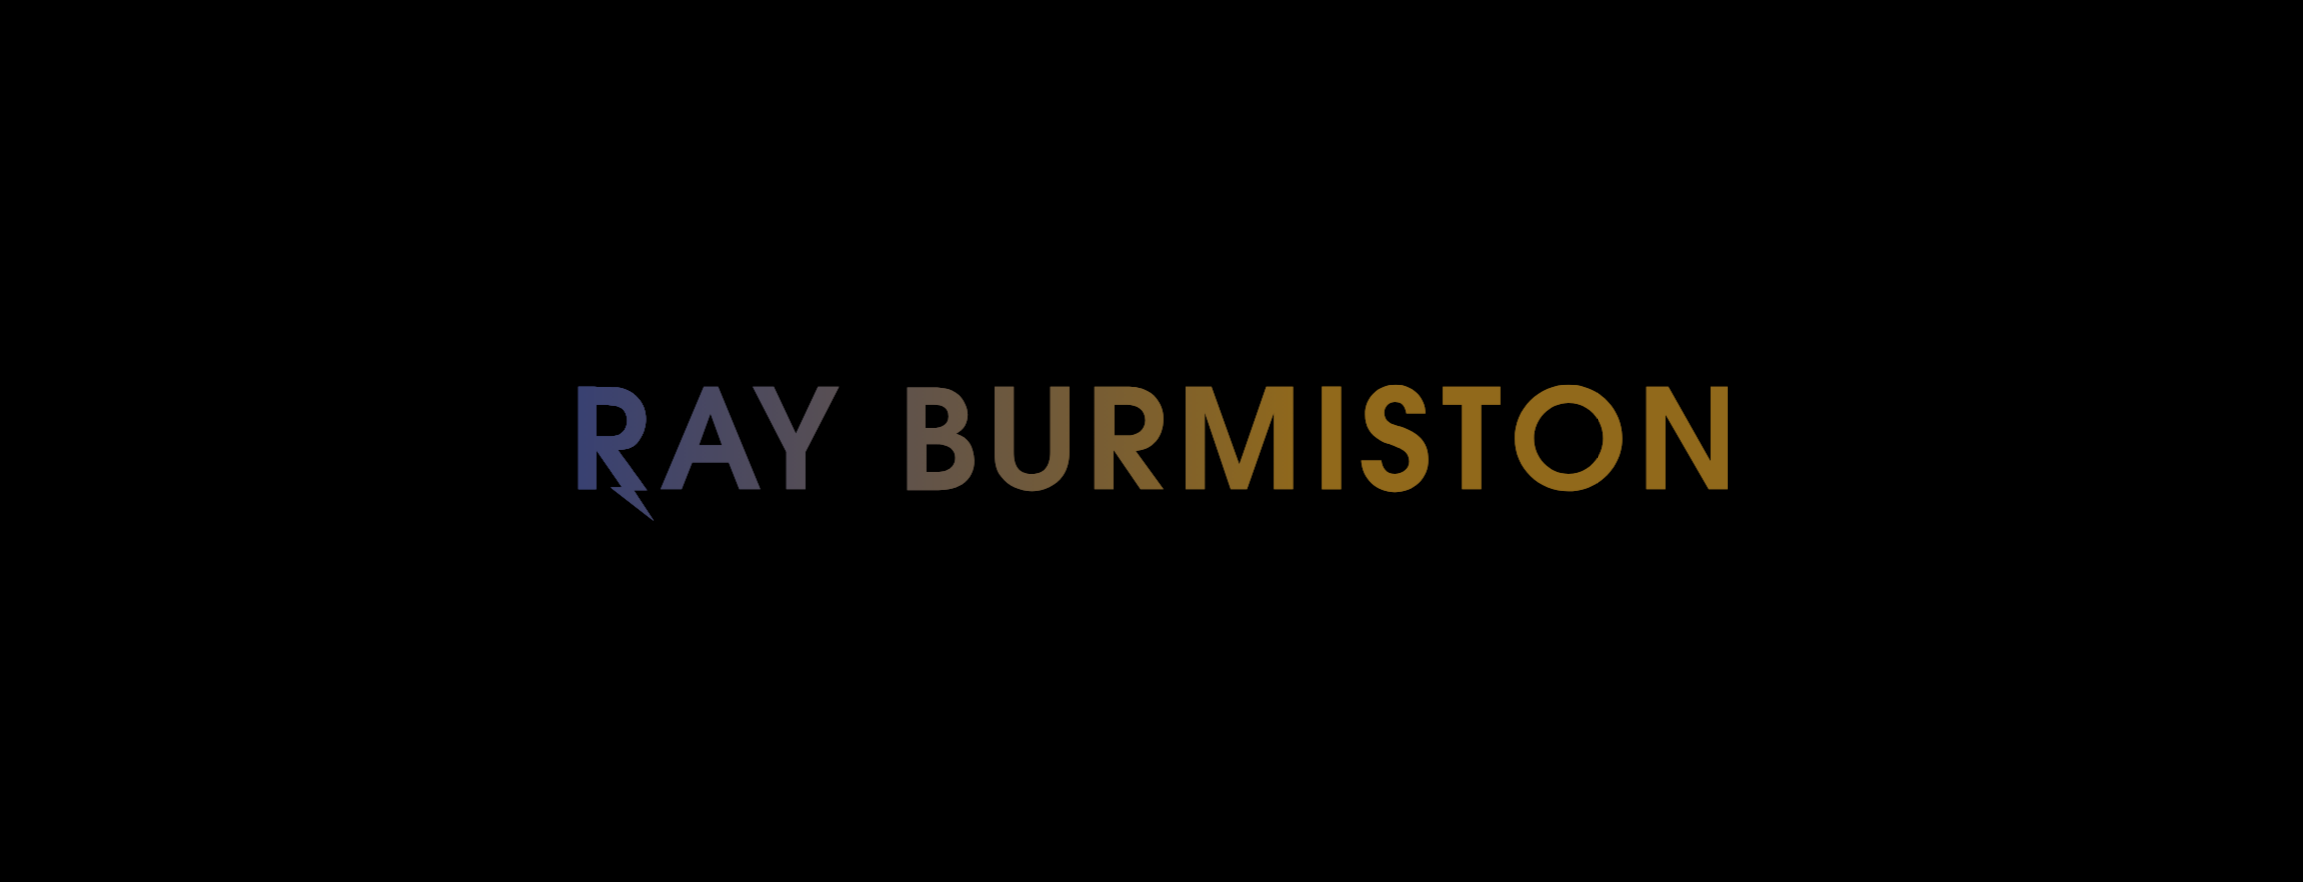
#include <cairo.h>
#include <math.h>
#include <stddef.h>


static void set_color(cairo_t *cr, unsigned color) {
    cairo_set_source_rgb(cr, (color >> 16) / 255.0, (color >> 8 & 255) / 255.0, (color & 255) / 255.0);
}

static void draw_image(cairo_t *cr, const char *path, double x, double y, double w, double h) {
    cairo_surface_t *image = cairo_image_surface_create_from_png(path);
    cairo_save(cr);
    cairo_set_source_surface(cr, image, x, y);
    cairo_rectangle(cr, x, y, w, h);
    cairo_fill(cr);
    cairo_restore(cr);
    cairo_surface_destroy(image);
}

int main(void) {
    cairo_surface_t *surface = cairo_image_surface_create(CAIRO_FORMAT_RGB24, 2303, 882);
    cairo_t *cr = cairo_create(surface);
    cairo_font_options_t *options = cairo_font_options_create();
    cairo_font_options_set_hint_metrics(options, CAIRO_HINT_METRICS_OFF);
    cairo_font_options_set_hint_style(options, CAIRO_HINT_STYLE_NONE);
    cairo_set_font_options(cr, options);
    cairo_set_miter_limit(cr, 4);
    set_color(cr, 0x000000);
    cairo_paint(cr);
    draw_image(cr, "assets/img1.png", 577, 384, 1151, 137);
    cairo_surface_write_to_png(surface, "output.png");
    cairo_font_options_destroy(options);
    cairo_destroy(cr);
    cairo_surface_destroy(surface);
    return 0;
}
